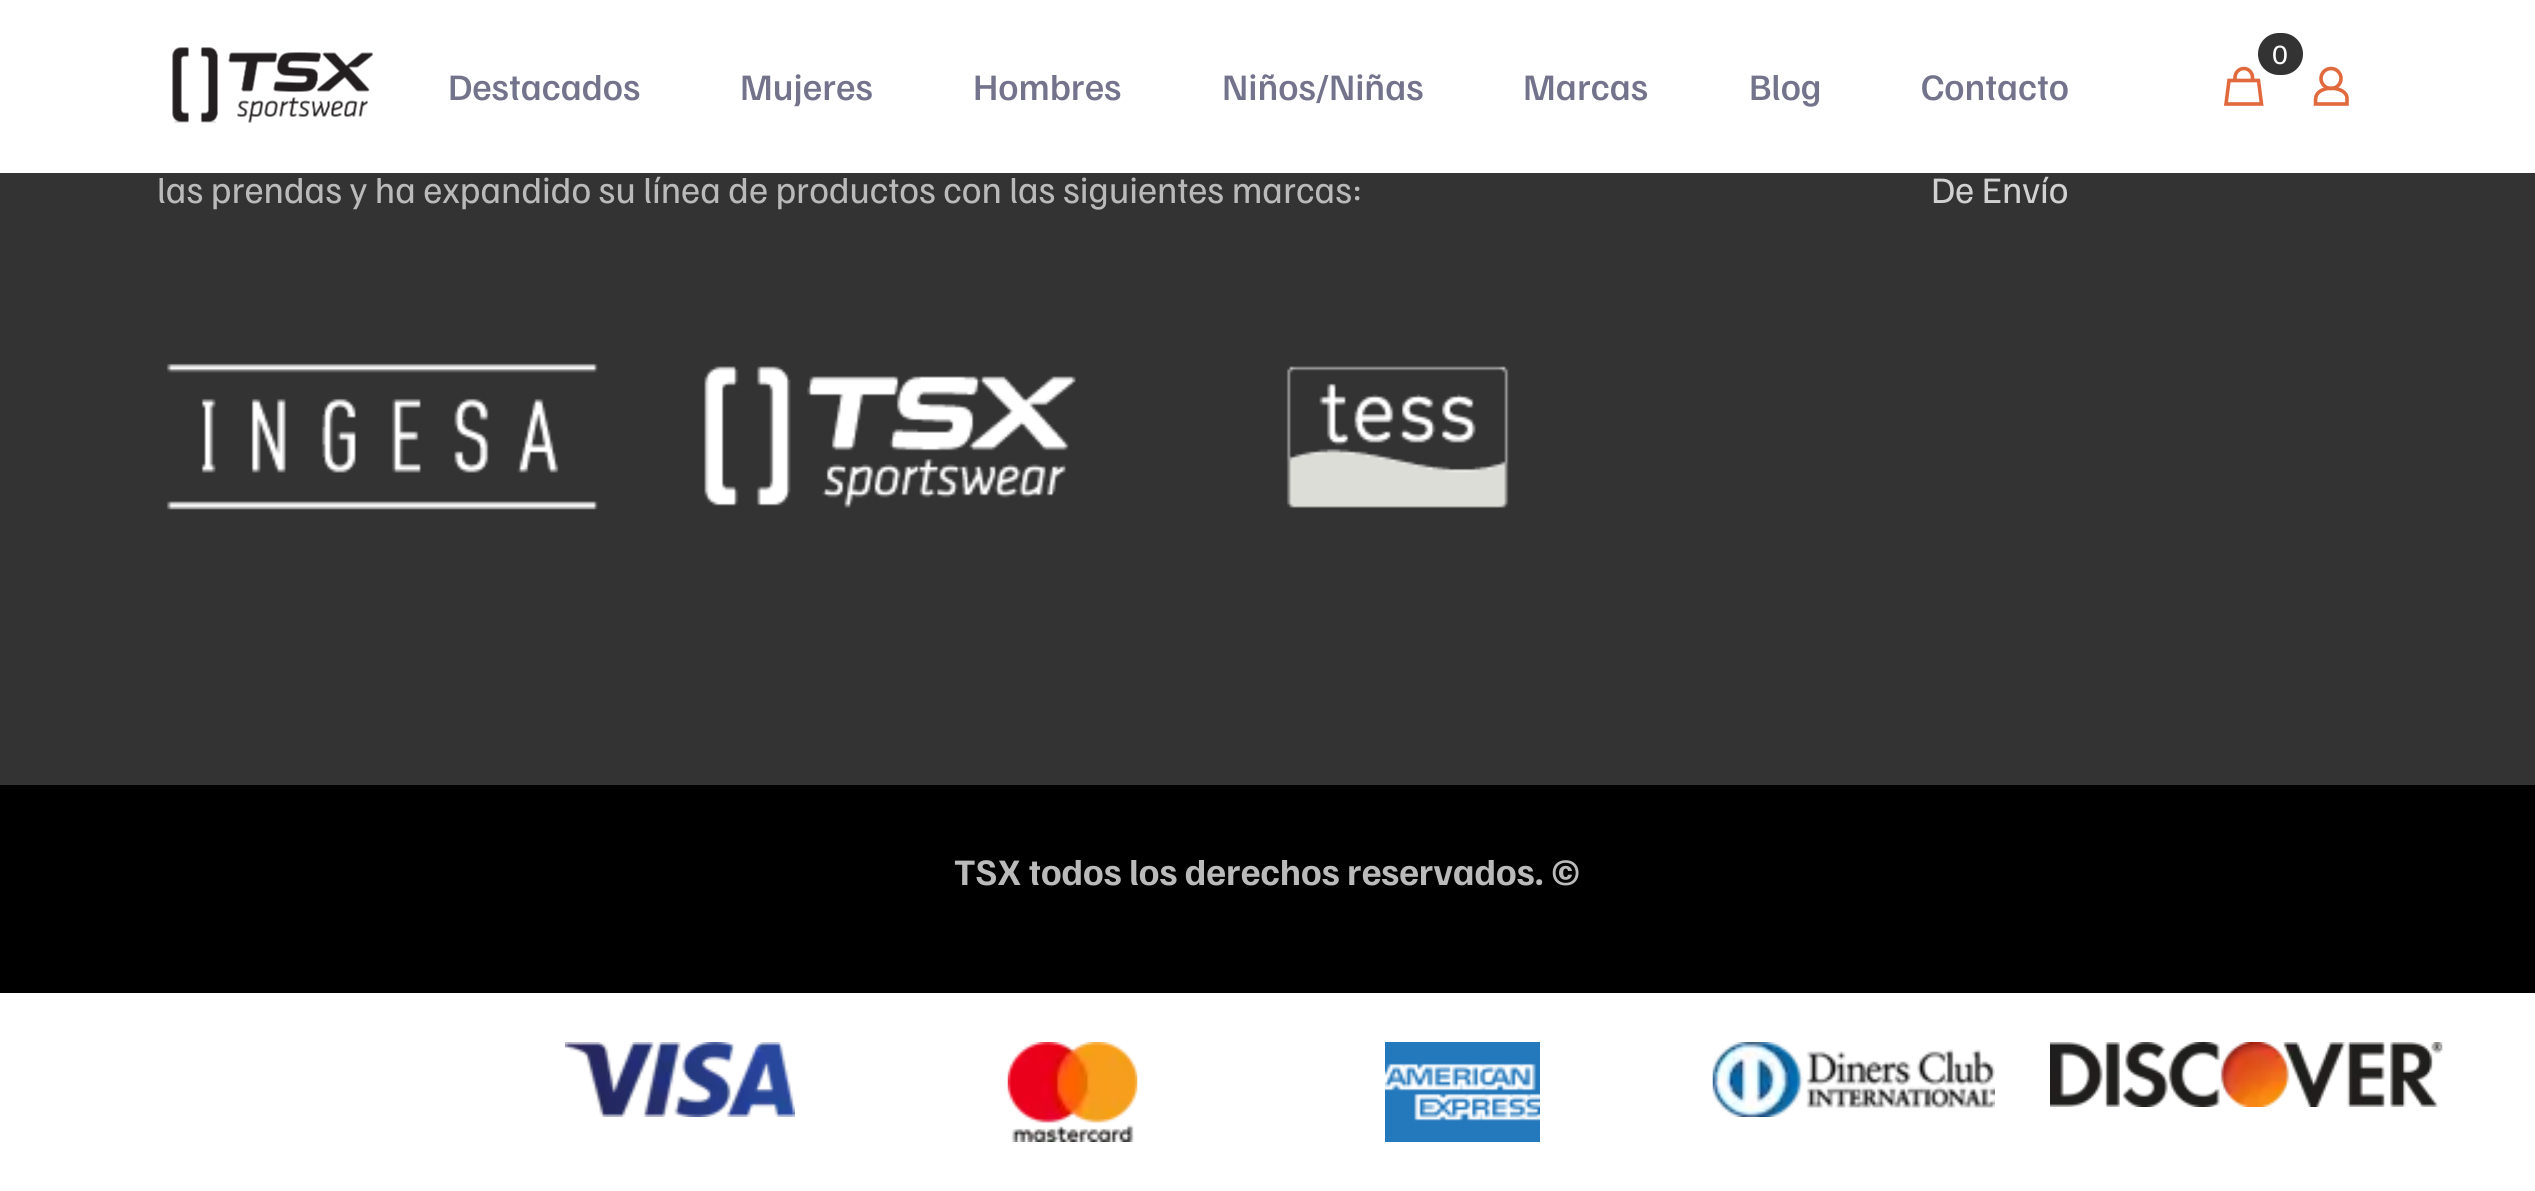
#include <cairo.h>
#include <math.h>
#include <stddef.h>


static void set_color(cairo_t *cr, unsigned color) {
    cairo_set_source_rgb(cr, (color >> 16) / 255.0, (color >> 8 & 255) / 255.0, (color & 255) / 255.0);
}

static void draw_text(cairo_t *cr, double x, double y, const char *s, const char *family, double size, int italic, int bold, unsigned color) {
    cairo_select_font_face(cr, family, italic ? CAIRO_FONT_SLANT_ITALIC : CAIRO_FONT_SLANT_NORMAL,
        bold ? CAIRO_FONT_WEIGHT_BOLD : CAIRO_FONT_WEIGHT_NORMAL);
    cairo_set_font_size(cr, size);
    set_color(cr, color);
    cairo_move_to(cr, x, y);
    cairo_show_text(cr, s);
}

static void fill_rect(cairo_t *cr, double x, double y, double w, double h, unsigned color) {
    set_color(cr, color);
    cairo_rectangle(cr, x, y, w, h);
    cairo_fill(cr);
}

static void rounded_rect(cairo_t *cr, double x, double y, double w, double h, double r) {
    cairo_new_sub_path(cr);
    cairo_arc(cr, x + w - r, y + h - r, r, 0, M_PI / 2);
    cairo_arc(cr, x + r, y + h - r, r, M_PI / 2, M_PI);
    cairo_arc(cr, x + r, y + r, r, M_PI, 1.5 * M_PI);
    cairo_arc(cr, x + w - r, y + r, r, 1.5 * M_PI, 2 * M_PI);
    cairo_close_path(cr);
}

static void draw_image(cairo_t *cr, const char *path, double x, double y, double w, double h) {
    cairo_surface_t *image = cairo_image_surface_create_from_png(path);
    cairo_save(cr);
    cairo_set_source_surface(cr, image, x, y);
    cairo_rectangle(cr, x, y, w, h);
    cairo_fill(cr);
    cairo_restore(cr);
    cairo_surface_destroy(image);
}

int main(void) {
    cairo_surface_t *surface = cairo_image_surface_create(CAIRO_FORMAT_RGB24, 2535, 1191);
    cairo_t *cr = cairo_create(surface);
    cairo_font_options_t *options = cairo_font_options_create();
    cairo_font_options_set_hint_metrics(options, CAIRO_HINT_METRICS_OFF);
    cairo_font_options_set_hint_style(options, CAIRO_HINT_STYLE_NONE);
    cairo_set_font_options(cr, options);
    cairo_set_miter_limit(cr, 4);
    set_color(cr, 0xFFFFFF);
    cairo_paint(cr);
    draw_image(cr, "assets/img1.png", 172, 47, 201, 76);
    draw_text(cr, 448, 100, "Destacados", "Familjen Grotesk Medium", 37.5, 0, 0, 0x73748C);
    draw_text(cr, 740, 100, "Mujeres", "Familjen Grotesk Medium", 37.5, 0, 0, 0x73748C);
    draw_text(cr, 973, 100, "Hombres", "Familjen Grotesk Medium", 37.5, 0, 0, 0x73748C);
    draw_text(cr, 1222, 100, "Niños/Niñas", "Familjen Grotesk Medium", 37.5, 0, 0, 0x73748C);
    draw_text(cr, 1523, 100, "Marcas", "Familjen Grotesk Medium", 37.5, 0, 0, 0x73748C);
    draw_text(cr, 1749, 100, "Blog", "Familjen Grotesk Medium", 37.5, 0, 0, 0x73748C);
    draw_text(cr, 1921, 100, "Contacto", "Familjen Grotesk Medium", 37.5, 0, 0, 0x73748C);
    cairo_new_path(cr);
    cairo_move_to(cr, 2261.5, 104);
    cairo_line_to(cr, 2226, 104);
    cairo_line_to(cr, 2229, 80.5);
    cairo_line_to(cr, 2258.5, 80.5);
    cairo_close_path(cr);
    cairo_move_to(cr, 2235, 80.5);
    cairo_line_to(cr, 2235, 77.5);
    cairo_curve_to(cr, 2235, 72.5, 2239, 68.5, 2244, 68.5);
    cairo_curve_to(cr, 2248.5, 68.5, 2252.5, 72.5, 2252.5, 77.5);
    cairo_line_to(cr, 2252.5, 80.5);
    set_color(cr, 0xE1693E);
    cairo_set_line_width(cr, 3.6);
    cairo_stroke(cr);
    set_color(cr, 0x333333);
    rounded_rect(cr, 2258, 33, 45, 42, 21);
    cairo_fill(cr);
    draw_text(cr, 2272, 64, "0", "Familjen Grotesk", 28, 0, 0, 0xFFFFFF);
    cairo_new_path(cr);
    cairo_arc(cr, 2331, 78.5, 10, 0, 2 * M_PI);
    set_color(cr, 0xE1693E);
    cairo_stroke(cr);
    cairo_new_path(cr);
    cairo_move_to(cr, 2347, 98.5);
    cairo_line_to(cr, 2347, 104);
    cairo_line_to(cr, 2315.5, 104);
    cairo_curve_to(cr, 2315.5, 101.5, 2315.5, 99, 2316, 96.5);
    cairo_curve_to(cr, 2319.5, 84.5, 2347, 86, 2347, 98.5);
    cairo_close_path(cr);
    cairo_stroke(cr);
    fill_rect(cr, 0, 173, 2535, 612, 0x333333);
    draw_text(cr, 157, 203, "las prendas y ha expandido su línea de productos con las siguientes marcas:", "Familjen Grotesk", 37.5, 0, 0, 0xBABABA);
    draw_image(cr, "assets/img2.png", 166, 363, 432, 147);
    draw_image(cr, "assets/img3.png", 704, 366, 372, 142);
    draw_image(cr, "assets/img4.png", 1286, 366, 223, 142);
    draw_text(cr, 1931, 203, "De Envío", "Familjen Grotesk", 37.5, 0, 0, 0xD1D1D1);
    fill_rect(cr, 0, 785, 2535, 208, 0x000000);
    draw_text(cr, 954, 885, "TSX todos los derechos reservados. ©", "Familjen Grotesk", 37.5, 0, 1, 0xBABABA);
    draw_image(cr, "assets/img5.png", 565, 1042, 230, 75);
    draw_image(cr, "assets/img6.png", 1007, 1042, 131, 100);
    draw_image(cr, "assets/img7.png", 1385, 1042, 155, 100);
    draw_image(cr, "assets/img8.png", 1712, 1042, 283, 75);
    draw_image(cr, "assets/img9.png", 2050, 1042, 393, 65);
    cairo_surface_write_to_png(surface, "output.png");
    cairo_font_options_destroy(options);
    cairo_destroy(cr);
    cairo_surface_destroy(surface);
    return 0;
}
